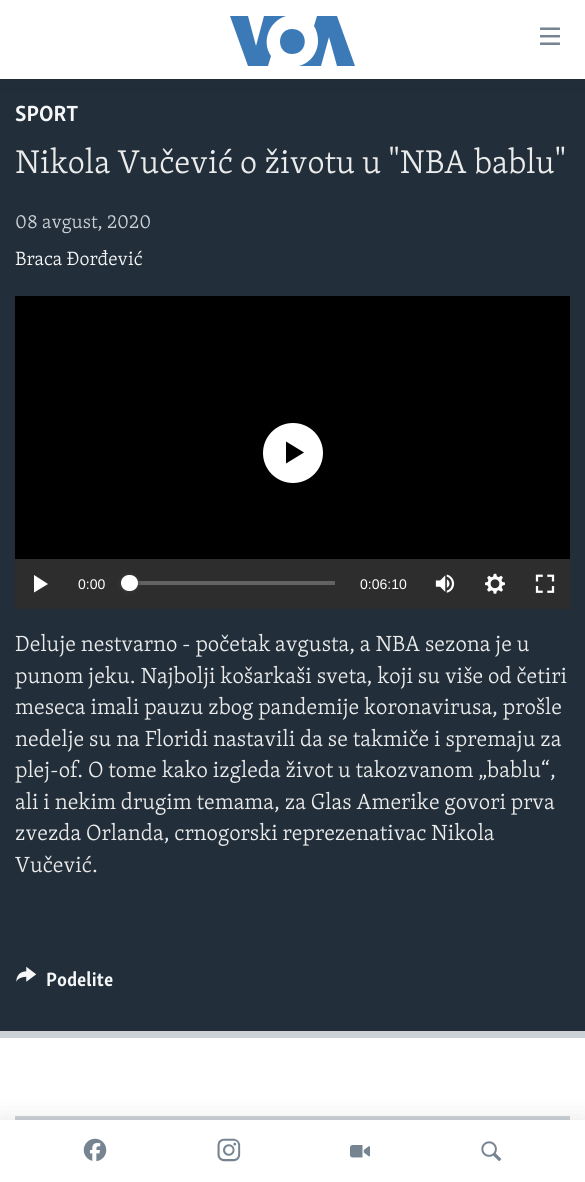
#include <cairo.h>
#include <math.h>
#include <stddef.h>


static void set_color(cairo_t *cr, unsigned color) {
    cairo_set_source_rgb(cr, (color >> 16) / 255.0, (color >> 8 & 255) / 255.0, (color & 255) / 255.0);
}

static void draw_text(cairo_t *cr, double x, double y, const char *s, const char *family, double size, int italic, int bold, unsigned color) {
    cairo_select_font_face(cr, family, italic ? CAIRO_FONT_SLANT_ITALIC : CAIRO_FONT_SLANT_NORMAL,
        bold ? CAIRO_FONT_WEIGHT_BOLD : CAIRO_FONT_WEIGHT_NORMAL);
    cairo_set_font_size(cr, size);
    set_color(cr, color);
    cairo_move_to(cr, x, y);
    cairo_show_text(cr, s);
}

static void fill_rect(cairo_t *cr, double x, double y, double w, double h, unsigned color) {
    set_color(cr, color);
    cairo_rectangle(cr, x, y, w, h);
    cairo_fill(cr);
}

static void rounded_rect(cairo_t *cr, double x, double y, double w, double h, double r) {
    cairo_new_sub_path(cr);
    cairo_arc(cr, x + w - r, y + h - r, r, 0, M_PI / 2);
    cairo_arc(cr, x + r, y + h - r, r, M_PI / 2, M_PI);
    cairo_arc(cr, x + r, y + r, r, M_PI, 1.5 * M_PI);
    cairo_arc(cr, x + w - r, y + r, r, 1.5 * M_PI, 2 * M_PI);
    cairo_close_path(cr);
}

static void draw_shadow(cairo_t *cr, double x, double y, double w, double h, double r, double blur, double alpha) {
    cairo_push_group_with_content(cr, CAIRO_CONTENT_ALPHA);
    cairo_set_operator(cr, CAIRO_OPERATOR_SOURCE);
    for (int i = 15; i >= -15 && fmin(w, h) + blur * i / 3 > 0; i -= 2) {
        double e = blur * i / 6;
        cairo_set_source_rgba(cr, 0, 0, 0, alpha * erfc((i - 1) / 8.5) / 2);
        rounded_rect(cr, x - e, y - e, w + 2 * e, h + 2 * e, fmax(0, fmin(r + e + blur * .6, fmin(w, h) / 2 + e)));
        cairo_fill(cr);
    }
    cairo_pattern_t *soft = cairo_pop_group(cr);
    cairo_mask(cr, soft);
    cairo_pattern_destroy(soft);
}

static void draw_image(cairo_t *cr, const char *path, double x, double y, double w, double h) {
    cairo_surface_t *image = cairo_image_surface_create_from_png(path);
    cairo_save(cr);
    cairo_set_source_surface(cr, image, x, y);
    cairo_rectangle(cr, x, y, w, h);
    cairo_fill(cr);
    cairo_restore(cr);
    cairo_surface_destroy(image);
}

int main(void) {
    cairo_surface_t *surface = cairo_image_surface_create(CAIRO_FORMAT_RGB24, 585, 1182);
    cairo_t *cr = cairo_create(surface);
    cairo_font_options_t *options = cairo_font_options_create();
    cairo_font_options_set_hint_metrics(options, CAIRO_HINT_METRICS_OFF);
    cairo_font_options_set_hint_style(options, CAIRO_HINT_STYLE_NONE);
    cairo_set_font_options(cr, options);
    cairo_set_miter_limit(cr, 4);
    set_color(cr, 0xFFFFFF);
    cairo_paint(cr);
    fill_rect(cr, 0, 79, 585, 952, 0x222F3A);
    set_color(cr, 0x000000);
    draw_shadow(cr, 0, 0, 585, 79, 0, 12.5, 0.1);
    fill_rect(cr, 0, 0, 585, 79, 0xFFFFFF);
    set_color(cr, 0x3B79B7);
    cairo_new_path(cr);
    cairo_move_to(cr, 271, 56);
    cairo_line_to(cr, 268, 66);
    cairo_line_to(cr, 248, 66);
    cairo_line_to(cr, 230, 16);
    cairo_line_to(cr, 248, 16);
    cairo_line_to(cr, 256, 46);
    cairo_line_to(cr, 264, 16);
    cairo_line_to(cr, 286, 16);
    cairo_curve_to(cr, 269, 21, 261, 42, 271, 56);
    cairo_close_path(cr);
    cairo_move_to(cr, 292, 29);
    cairo_curve_to(cr, 276, 29, 276, 54, 292, 54);
    cairo_curve_to(cr, 309, 54, 309, 29, 292, 29);
    cairo_close_path(cr);
    cairo_move_to(cr, 318, 41);
    cairo_curve_to(cr, 318, 53, 310, 63, 299, 66);
    cairo_line_to(cr, 321, 66);
    cairo_line_to(cr, 329, 37);
    cairo_line_to(cr, 337, 66);
    cairo_line_to(cr, 355, 66);
    cairo_line_to(cr, 337, 16);
    cairo_line_to(cr, 317, 16);
    cairo_line_to(cr, 314, 26);
    cairo_curve_to(cr, 317, 31, 318, 36, 318, 41);
    cairo_close_path(cr);
    cairo_fill(cr);
    draw_image(cr, "assets/img1.png", 540, 27, 20, 18);
    fill_rect(cr, 15, 1116, 555, 4, 0xCBD1D6);
    set_color(cr, 0x000000);
    draw_shadow(cr, 0, 1120, 585, 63, 0, 12.5, 0.1);
    fill_rect(cr, 0, 1120, 585, 62, 0xFFFFFF);
    draw_image(cr, "assets/img2.png", 83, 1138, 24, 24);
    draw_image(cr, "assets/img3.png", 217, 1138, 24, 24);
    draw_image(cr, "assets/img4.png", 350, 1145, 20, 13);
    draw_image(cr, "assets/img5.png", 481, 1141, 21, 21);
    fill_rect(cr, 0, 1031, 585, 7, 0xCBD1D6);
    draw_text(cr, 15, 121, "SPORT", "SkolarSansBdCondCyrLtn", 22.5, 0, 1, 0xF6F7F8);
    draw_text(cr, 15, 173, "Nikola Vučević o životu u \"NBA bablu\"", "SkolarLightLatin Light", 33.75, 0, 0, 0xEBEBEB);
    draw_text(cr, 15, 228, "08 avgust, 2020", "SkolarLightLatin Light", 19.75, 0, 0, 0xCBD1D6);
    draw_text(cr, 15, 265, "Braca Đorđević", "SkolarLightLatin Light", 19.75, 0, 0, 0xF6F7F8);
    fill_rect(cr, 15, 296, 555, 263, 0x000000);
    set_color(cr, 0xFFFFFF);
    cairo_new_path(cr);
    cairo_arc(cr, 293, 453, 30, 0, 2 * M_PI);
    cairo_fill(cr);
    set_color(cr, 0x000000);
    cairo_new_path(cr);
    cairo_move_to(cr, 286, 463.5);
    cairo_line_to(cr, 304, 452.5);
    cairo_line_to(cr, 286, 441.5);
    cairo_close_path(cr);
    cairo_fill(cr);
    fill_rect(cr, 15, 559, 555, 50, 0x2D2D2D);
    set_color(cr, 0xFFFFFF);
    cairo_new_path(cr);
    cairo_move_to(cr, 34, 592.5);
    cairo_line_to(cr, 48, 584);
    cairo_line_to(cr, 34, 575);
    cairo_close_path(cr);
    cairo_fill(cr);
    draw_text(cr, 78, 589, "0:00", "Liberation Sans", 14, 0, 0, 0xFFFFFF);
    fill_rect(cr, 129, 581, 206, 4, 0x626262);
    set_color(cr, 0x414144);
    draw_shadow(cr, 121, 575, 17, 16, 8, 2, 1);
    set_color(cr, 0xFFFFFF);
    rounded_rect(cr, 121, 575, 17, 16, 8);
    cairo_fill(cr);
    draw_text(cr, 360, 589, "0:06:10", "Liberation Sans", 14, 0, 0, 0xFFFFFF);
    draw_image(cr, "assets/img6.png", 435, 574, 20, 19);
    draw_image(cr, "assets/img7.png", 485, 573, 20, 21);
    draw_image(cr, "assets/img8.png", 535, 574, 20, 19);
    draw_text(cr, 15, 651, "Deluje nestvarno - početak avgusta, a NBA sezona je u", "SkolarLightLatin Light", 22.5, 0, 0, 0xEBEBEB);
    draw_text(cr, 15, 683, "punom jeku. Najbolji košarkaši sveta, koji su više od četiri", "SkolarLightLatin Light", 22.5, 0, 0, 0xEBEBEB);
    draw_text(cr, 15, 714, "meseca imali pauzu zbog pandemije koronavirusa, prošle", "SkolarLightLatin Light", 22.5, 0, 0, 0xEBEBEB);
    draw_text(cr, 15, 746, "nedelje su na Floridi nastavili da se takmiče i spremaju za", "SkolarLightLatin Light", 22.5, 0, 0, 0xEBEBEB);
    draw_text(cr, 15, 777, "plej-of. O tome kako izgleda život u takozvanom „bablu“,", "SkolarLightLatin Light", 22.5, 0, 0, 0xEBEBEB);
    draw_text(cr, 15, 809, "ali i nekim drugim temama, za Glas Amerike govori prva", "SkolarLightLatin Light", 22.5, 0, 0, 0xEBEBEB);
    draw_text(cr, 15, 840, "zvezda Orlanda, crnogorski reprezenativac Nikola", "SkolarLightLatin Light", 22.5, 0, 0, 0xEBEBEB);
    draw_text(cr, 15, 872, "Vučević.", "SkolarLightLatin Light", 22.5, 0, 0, 0xEBEBEB);
    draw_image(cr, "assets/img9.png", 16, 966, 21, 16);
    draw_text(cr, 46, 986, "Podelite", "SkolarSansBdCondCyrLtn", 19.75, 0, 1, 0xF6F7F8);
    cairo_surface_write_to_png(surface, "output.png");
    cairo_font_options_destroy(options);
    cairo_destroy(cr);
    cairo_surface_destroy(surface);
    return 0;
}
